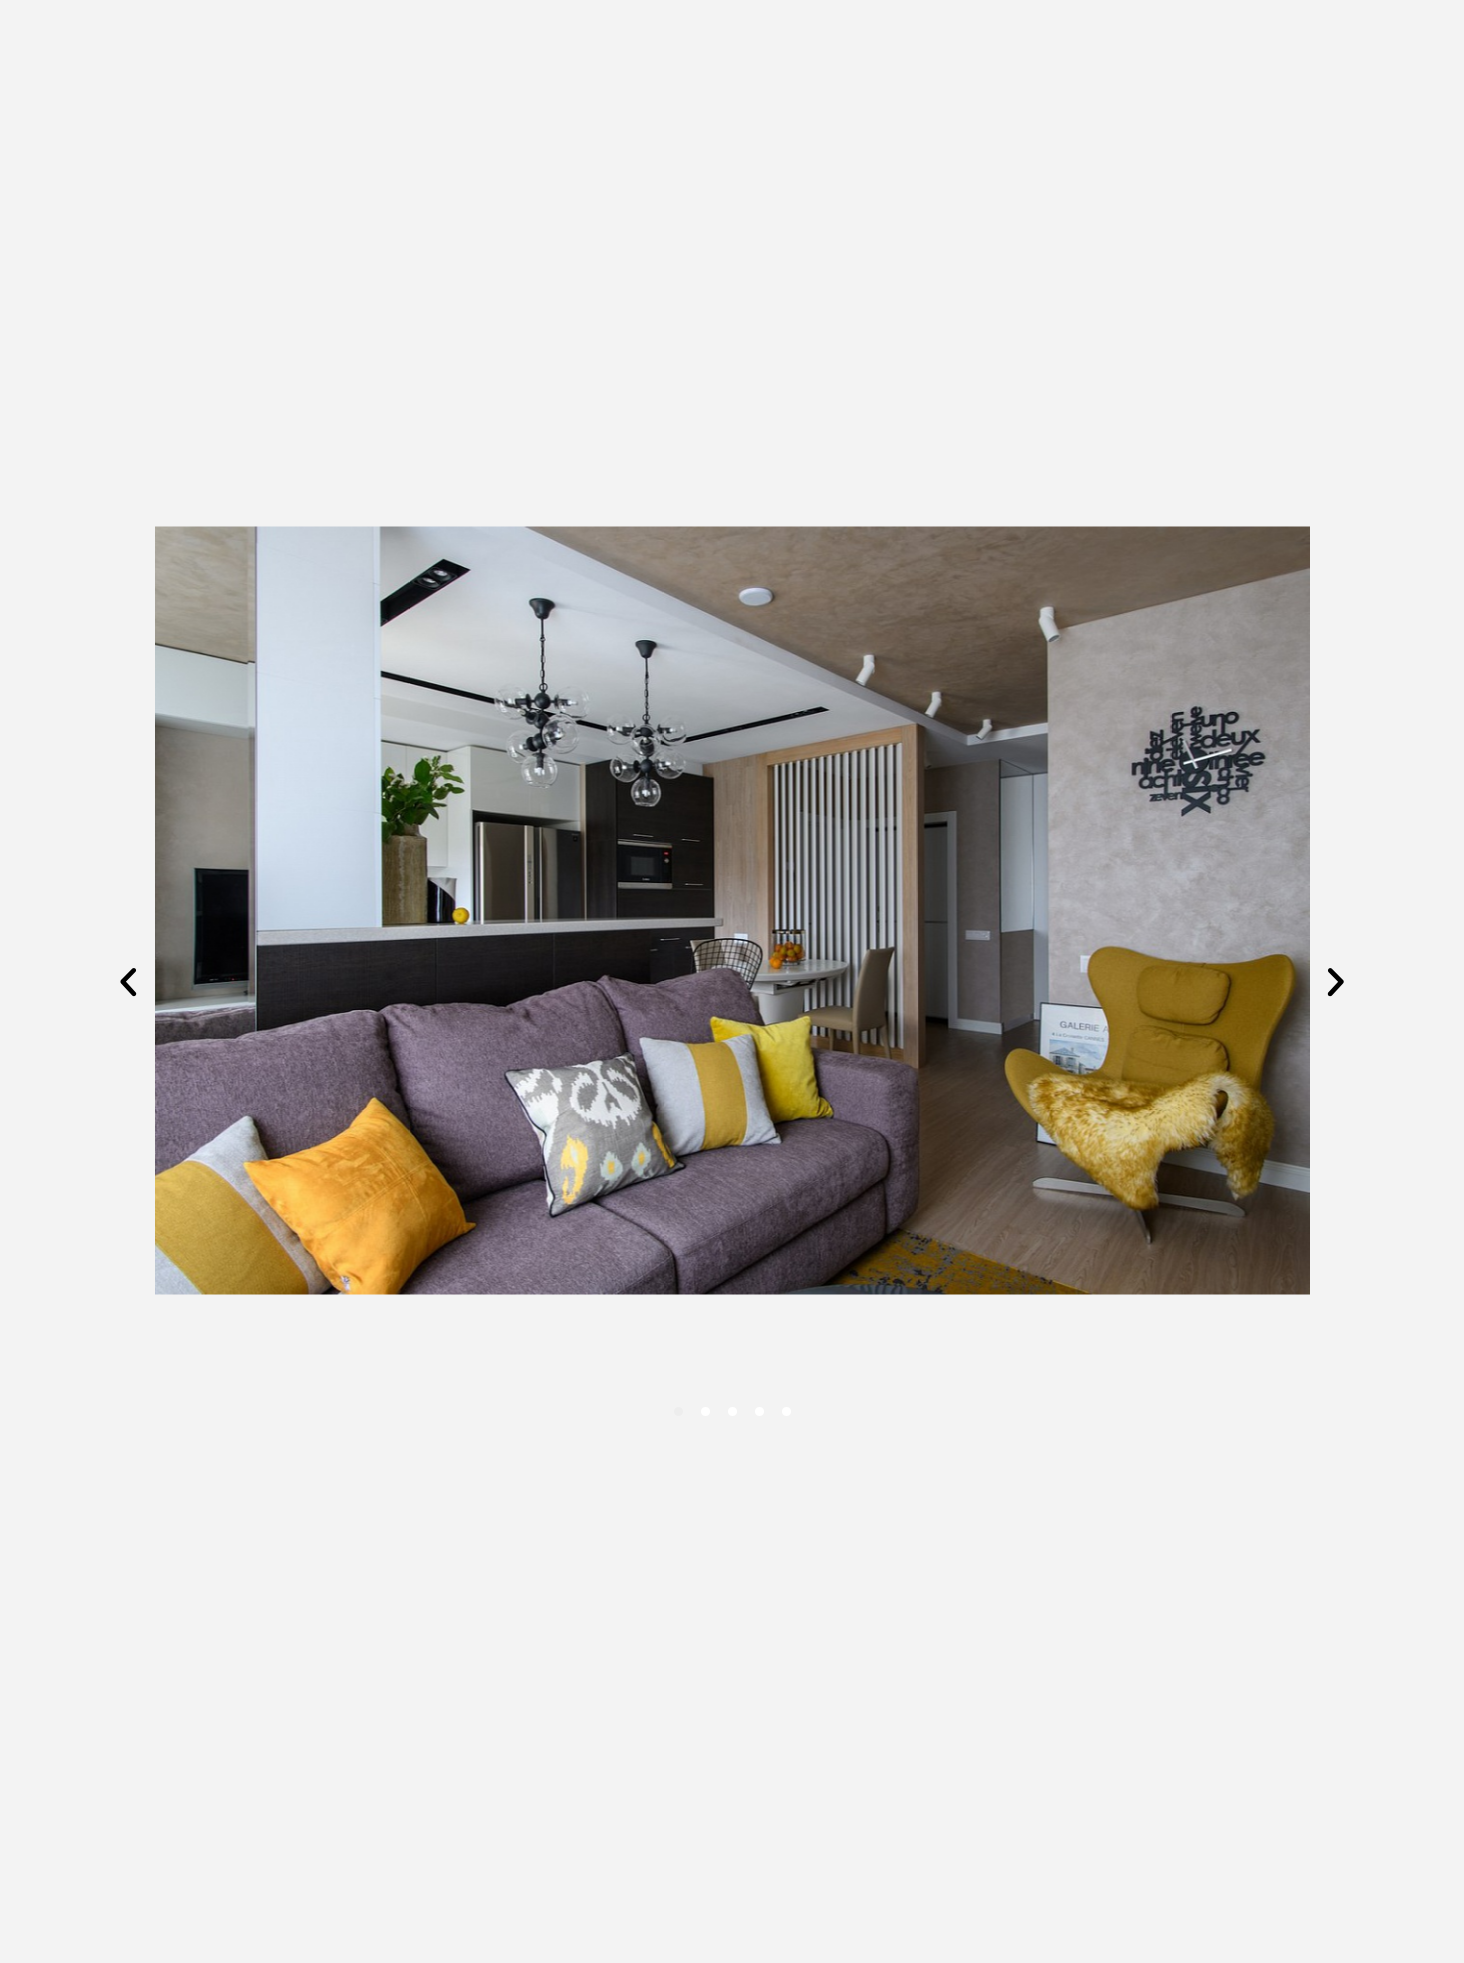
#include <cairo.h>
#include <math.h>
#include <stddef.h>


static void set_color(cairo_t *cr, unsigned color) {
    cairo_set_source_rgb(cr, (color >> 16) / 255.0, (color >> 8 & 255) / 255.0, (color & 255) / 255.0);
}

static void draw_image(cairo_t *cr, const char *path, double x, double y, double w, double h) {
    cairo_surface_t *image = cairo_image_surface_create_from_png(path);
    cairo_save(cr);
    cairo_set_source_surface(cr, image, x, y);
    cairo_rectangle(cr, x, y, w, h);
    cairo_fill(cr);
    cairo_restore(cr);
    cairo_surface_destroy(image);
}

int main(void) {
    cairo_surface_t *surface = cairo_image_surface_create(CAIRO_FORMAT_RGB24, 1464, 1963);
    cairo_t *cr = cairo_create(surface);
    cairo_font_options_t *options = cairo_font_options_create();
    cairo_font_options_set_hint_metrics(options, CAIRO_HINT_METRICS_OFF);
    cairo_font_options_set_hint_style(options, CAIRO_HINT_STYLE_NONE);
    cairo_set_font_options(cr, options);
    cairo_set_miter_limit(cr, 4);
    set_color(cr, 0xF3F3F3);
    cairo_paint(cr);
    draw_image(cr, "assets/img1.png", 120, 968, 17, 29);
    draw_image(cr, "assets/img2.png", 155, 526, 1155, 769);
    draw_image(cr, "assets/img3.png", 1327, 968, 17, 29);
    set_color(cr, 0xEDEDED);
    cairo_arc(cr, 678.5, 1411.5, 4.5, 0, 2 * M_PI);
    cairo_fill(cr);
    set_color(cr, 0xFFFFFF);
    cairo_arc(cr, 705.5, 1411.5, 4.5, 0, 2 * M_PI);
    cairo_fill(cr);
    cairo_arc(cr, 732.5, 1411.5, 4.5, 0, 2 * M_PI);
    cairo_fill(cr);
    cairo_arc(cr, 759.5, 1411.5, 4.5, 0, 2 * M_PI);
    cairo_fill(cr);
    cairo_arc(cr, 786.5, 1411.5, 4.5, 0, 2 * M_PI);
    cairo_fill(cr);
    cairo_surface_write_to_png(surface, "output.png");
    cairo_font_options_destroy(options);
    cairo_destroy(cr);
    cairo_surface_destroy(surface);
    return 0;
}
